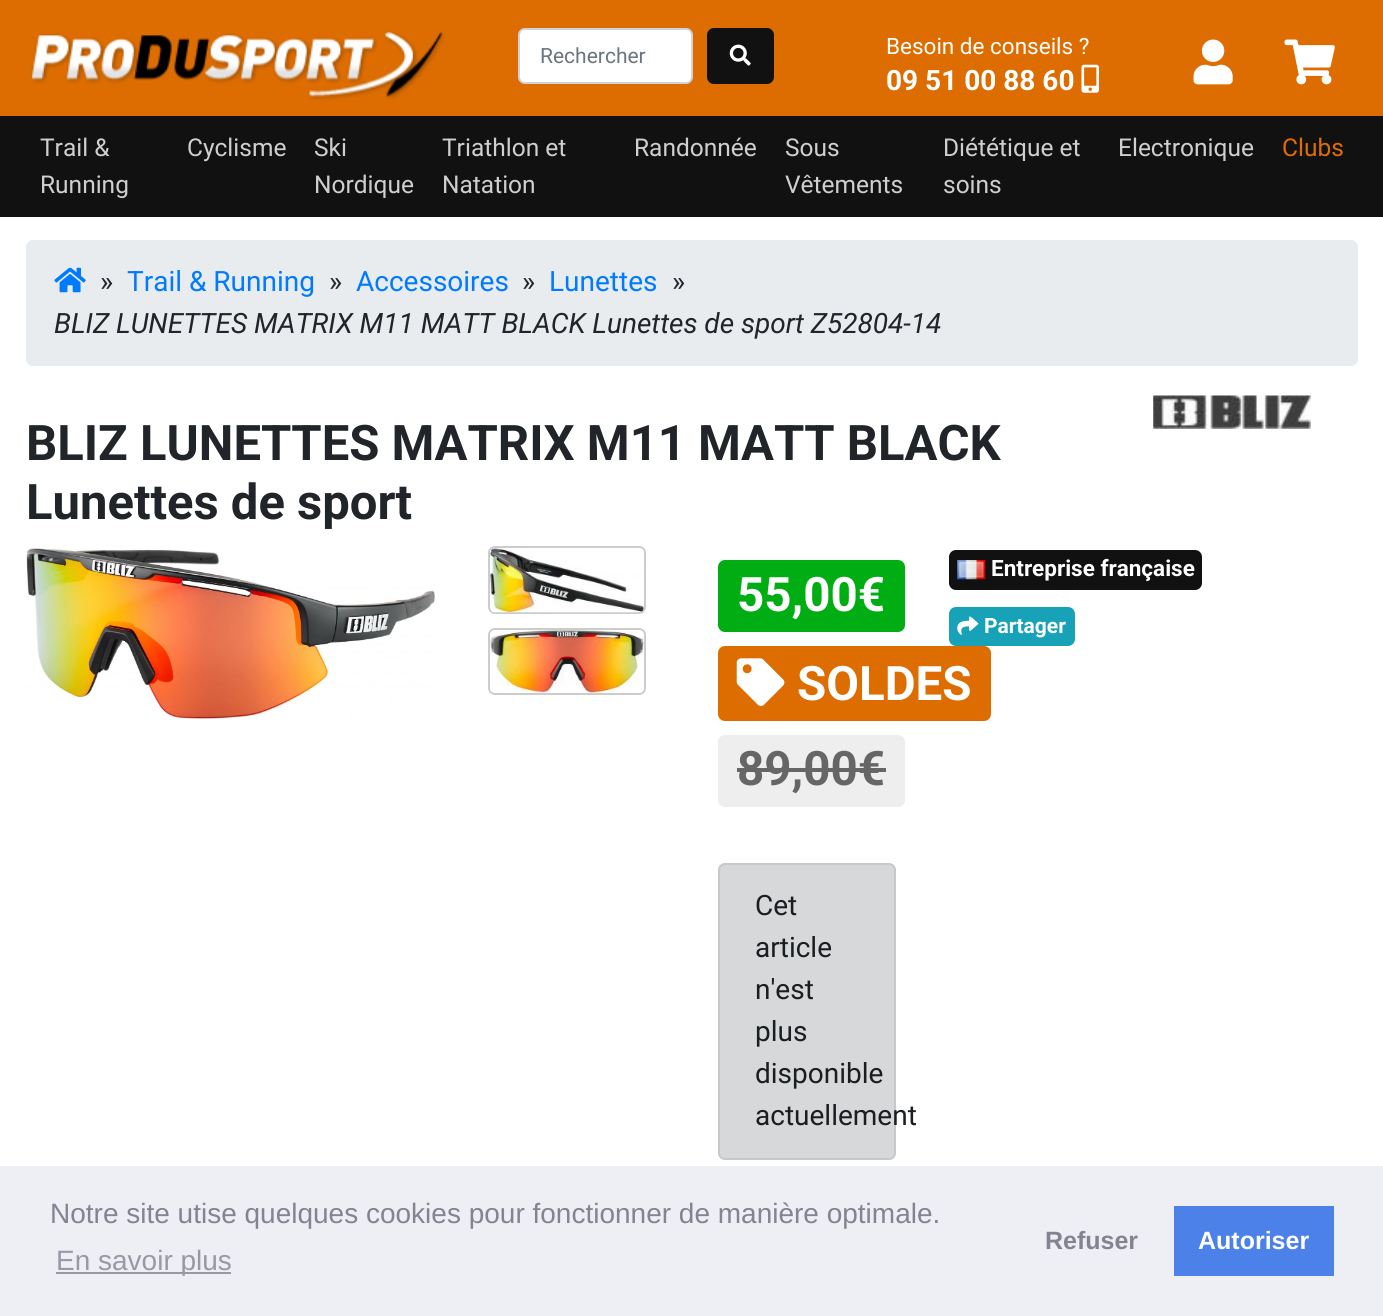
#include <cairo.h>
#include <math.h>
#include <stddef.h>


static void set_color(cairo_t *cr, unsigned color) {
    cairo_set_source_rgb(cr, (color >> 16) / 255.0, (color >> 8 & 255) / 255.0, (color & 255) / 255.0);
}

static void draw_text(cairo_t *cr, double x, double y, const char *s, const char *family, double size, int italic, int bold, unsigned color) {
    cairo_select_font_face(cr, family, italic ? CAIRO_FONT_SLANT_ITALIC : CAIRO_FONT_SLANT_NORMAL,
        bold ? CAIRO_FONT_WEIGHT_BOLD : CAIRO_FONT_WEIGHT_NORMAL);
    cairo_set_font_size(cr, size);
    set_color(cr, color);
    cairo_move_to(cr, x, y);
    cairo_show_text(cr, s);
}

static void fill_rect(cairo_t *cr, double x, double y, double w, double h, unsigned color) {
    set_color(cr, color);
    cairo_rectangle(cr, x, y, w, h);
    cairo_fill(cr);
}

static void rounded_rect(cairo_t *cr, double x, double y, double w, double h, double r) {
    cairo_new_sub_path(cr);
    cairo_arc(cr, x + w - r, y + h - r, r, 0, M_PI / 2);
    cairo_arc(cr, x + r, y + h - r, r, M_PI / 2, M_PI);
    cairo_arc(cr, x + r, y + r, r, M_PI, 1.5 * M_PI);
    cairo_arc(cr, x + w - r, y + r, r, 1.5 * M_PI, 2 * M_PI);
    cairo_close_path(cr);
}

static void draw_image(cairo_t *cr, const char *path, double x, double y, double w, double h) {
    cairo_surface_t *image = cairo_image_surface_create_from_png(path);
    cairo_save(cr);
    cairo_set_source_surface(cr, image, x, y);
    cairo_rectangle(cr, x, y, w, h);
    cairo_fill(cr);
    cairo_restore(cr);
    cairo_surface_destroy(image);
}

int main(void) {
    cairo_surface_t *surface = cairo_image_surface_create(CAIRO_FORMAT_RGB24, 1383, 1316);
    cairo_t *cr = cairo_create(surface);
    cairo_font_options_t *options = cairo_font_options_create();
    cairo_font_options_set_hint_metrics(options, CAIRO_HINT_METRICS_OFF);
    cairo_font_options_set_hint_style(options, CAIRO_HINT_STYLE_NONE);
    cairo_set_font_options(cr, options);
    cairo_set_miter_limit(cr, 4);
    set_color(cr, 0xFFFFFF);
    cairo_paint(cr);
    fill_rect(cr, 0, 0, 1383, 116, 0xDD6D01);
    draw_image(cr, "assets/img1.png", 30, 31, 415, 69);
    set_color(cr, 0xFFFFFF);
    rounded_rect(cr, 519, 29, 173, 54, 6);
    cairo_fill_preserve(cr);
    set_color(cr, 0xCED4DA);
    cairo_stroke(cr);
    draw_text(cr, 540, 63, "Rechercher", "Roboto", 21, 0, 0, 0x6C757D);
    set_color(cr, 0x111111);
    rounded_rect(cr, 707, 28, 67, 56, 7);
    cairo_fill(cr);
    draw_image(cr, "assets/img2.png", 729, 44, 22, 22);
    draw_text(cr, 886, 54, "Besoin de conseils ?", "Roboto", 22.5, 0, 0, 0xFFFFFF);
    draw_text(cr, 886, 90, "09 51 00 88 60", "Roboto", 28, 0, 1, 0xFFFFFF);
    draw_image(cr, "assets/img3.png", 1081, 64, 18, 29);
    draw_image(cr, "assets/img4.png", 1193, 39, 40, 46);
    draw_image(cr, "assets/img5.png", 1284, 39, 51, 46);
    fill_rect(cr, 0, 116, 1383, 101, 0x111111);
    draw_text(cr, 40, 156, "Trail &", "Roboto", 24.5, 0, 0, 0xCFCFCF);
    draw_text(cr, 40, 193, "Running", "Roboto", 24.5, 0, 0, 0xCFCFCF);
    draw_text(cr, 187, 156, "Cyclisme", "Roboto", 24.5, 0, 0, 0xCFCFCF);
    draw_text(cr, 314, 156, "Ski", "Roboto", 24.5, 0, 0, 0xCFCFCF);
    draw_text(cr, 314, 193, "Nordique", "Roboto", 24.5, 0, 0, 0xCFCFCF);
    draw_text(cr, 442, 156, "Triathlon et", "Roboto", 24.5, 0, 0, 0xCFCFCF);
    draw_text(cr, 442, 193, "Natation", "Roboto", 24.5, 0, 0, 0xCFCFCF);
    draw_text(cr, 634, 156, "Randonnée", "Roboto", 24.5, 0, 0, 0xCFCFCF);
    draw_text(cr, 785, 156, "Sous", "Roboto", 24.5, 0, 0, 0xCFCFCF);
    draw_text(cr, 785, 193, "Vêtements", "Roboto", 24.5, 0, 0, 0xCFCFCF);
    draw_text(cr, 943, 156, "Diététique et", "Roboto", 24.5, 0, 0, 0xCFCFCF);
    draw_text(cr, 943, 193, "soins", "Roboto", 24.5, 0, 0, 0xCFCFCF);
    draw_text(cr, 1118, 156, "Electronique", "Roboto", 24.5, 0, 0, 0xCFCFCF);
    draw_text(cr, 1282, 156, "Clubs", "Roboto", 24.5, 0, 0, 0xDD6D01);
    set_color(cr, 0xE9ECEF);
    rounded_rect(cr, 26, 240, 1332, 126, 7);
    cairo_fill(cr);
    draw_image(cr, "assets/img6.png", 54, 267, 32, 26);
    draw_text(cr, 100, 291, "»", "Roboto", 28, 0, 0, 0x212529);
    draw_text(cr, 127, 291, "Trail & Running", "Roboto", 28, 0, 0, 0x007BFF);
    draw_text(cr, 329, 291, "»", "Roboto", 28, 0, 0, 0x212529);
    draw_text(cr, 356, 291, "Accessoires", "Roboto", 28, 0, 0, 0x007BFF);
    draw_text(cr, 522, 291, "»", "Roboto", 28, 0, 0, 0x212529);
    draw_text(cr, 549, 291, "Lunettes", "Roboto", 28, 0, 0, 0x007BFF);
    draw_text(cr, 672, 291, "»", "Roboto", 28, 0, 0, 0x212529);
    draw_text(cr, 54, 333, "BLIZ LUNETTES MATRIX M11 MATT BLACK Lunettes de sport Z52804-14", "Roboto", 28, 1, 0, 0x212529);
    draw_image(cr, "assets/img7.png", 1153, 395, 158, 34);
    draw_text(cr, 26, 460, "BLIZ LUNETTES MATRIX M11 MATT BLACK", "Roboto", 49, 0, 1, 0x212529);
    draw_text(cr, 26, 519, "Lunettes de sport", "Roboto", 49, 0, 1, 0x212529);
    draw_image(cr, "assets/img8.png", 26, 548, 409, 172);
    rounded_rect(cr, 489, 547, 156, 66, 6);
    set_color(cr, 0xCCCCCC);
    cairo_stroke(cr);
    draw_image(cr, "assets/img9.png", 490, 548, 154, 65);
    rounded_rect(cr, 489, 629, 156, 65, 6);
    cairo_stroke(cr);
    draw_image(cr, "assets/img10.png", 490, 630, 154, 63);
    set_color(cr, 0x00AD12);
    rounded_rect(cr, 718, 560, 187, 72, 7);
    cairo_fill(cr);
    draw_text(cr, 737, 611, "55,00€", "Roboto", 47.5, 0, 1, 0xFFFFFF);
    set_color(cr, 0xDD6D01);
    rounded_rect(cr, 718, 646, 273, 75, 7);
    cairo_fill(cr);
    draw_image(cr, "assets/img11.png", 736, 658, 49, 48);
    draw_text(cr, 797, 700, "SOLDES", "Roboto", 47.5, 0, 1, 0xFFFFFF);
    set_color(cr, 0xEEEEEE);
    rounded_rect(cr, 718, 735, 187, 72, 7);
    cairo_fill(cr);
    draw_text(cr, 737, 785, "89,00€", "Roboto", 47.5, 0, 1, 0x666666);
    fill_rect(cr, 737, 768, 149, 4, 0x666666);
    set_color(cr, 0xD6D8D9);
    rounded_rect(cr, 719, 864, 176, 295, 6);
    cairo_fill_preserve(cr);
    set_color(cr, 0xC6C8CA);
    cairo_stroke(cr);
    draw_text(cr, 755, 915, "Cet", "Roboto", 28, 0, 0, 0x1B1E21);
    draw_text(cr, 755, 957, "article", "Roboto", 28, 0, 0, 0x1B1E21);
    draw_text(cr, 755, 999, "n'est", "Roboto", 28, 0, 0, 0x1B1E21);
    draw_text(cr, 755, 1041, "plus", "Roboto", 28, 0, 0, 0x1B1E21);
    draw_text(cr, 755, 1083, "disponible", "Roboto", 28, 0, 0, 0x1B1E21);
    draw_text(cr, 755, 1125, "actuellement", "Roboto", 28, 0, 0, 0x1B1E21);
    set_color(cr, 0x111111);
    rounded_rect(cr, 949, 550, 253, 40, 7);
    cairo_fill(cr);
    draw_image(cr, "assets/img12.png", 957, 560, 29, 20);
    draw_text(cr, 991, 576, "Entreprise française", "Roboto", 22.5, 0, 1, 0xFFFFFF);
    set_color(cr, 0x17A2B8);
    rounded_rect(cr, 949, 607, 126, 39, 7);
    cairo_fill(cr);
    draw_image(cr, "assets/img13.png", 957, 616, 22, 19);
    draw_text(cr, 984, 633, "Partager", "Roboto", 21, 0, 1, 0xFFFFFF);
    fill_rect(cr, 0, 1166, 1383, 150, 0xEDEFF5);
    draw_text(cr, 50, 1223, "Notre site utise quelques cookies pour fonctionner de manière optimale.", "Liberation Sans", 28, 0, 0, 0x838391);
    fill_rect(cr, 56, 1272, 175, 2, 0x9899A5);
    draw_text(cr, 56, 1270, "En savoir plus", "Liberation Sans", 28, 0, 0, 0x9899A5);
    draw_text(cr, 1045, 1249, "Refuser", "Liberation Sans", 25, 0, 1, 0x838391);
    fill_rect(cr, 1174, 1206, 160, 70, 0x4B81E8);
    draw_text(cr, 1198, 1249, "Autoriser", "Liberation Sans", 25, 0, 1, 0xFFFFFF);
    cairo_surface_write_to_png(surface, "output.png");
    cairo_font_options_destroy(options);
    cairo_destroy(cr);
    cairo_surface_destroy(surface);
    return 0;
}
